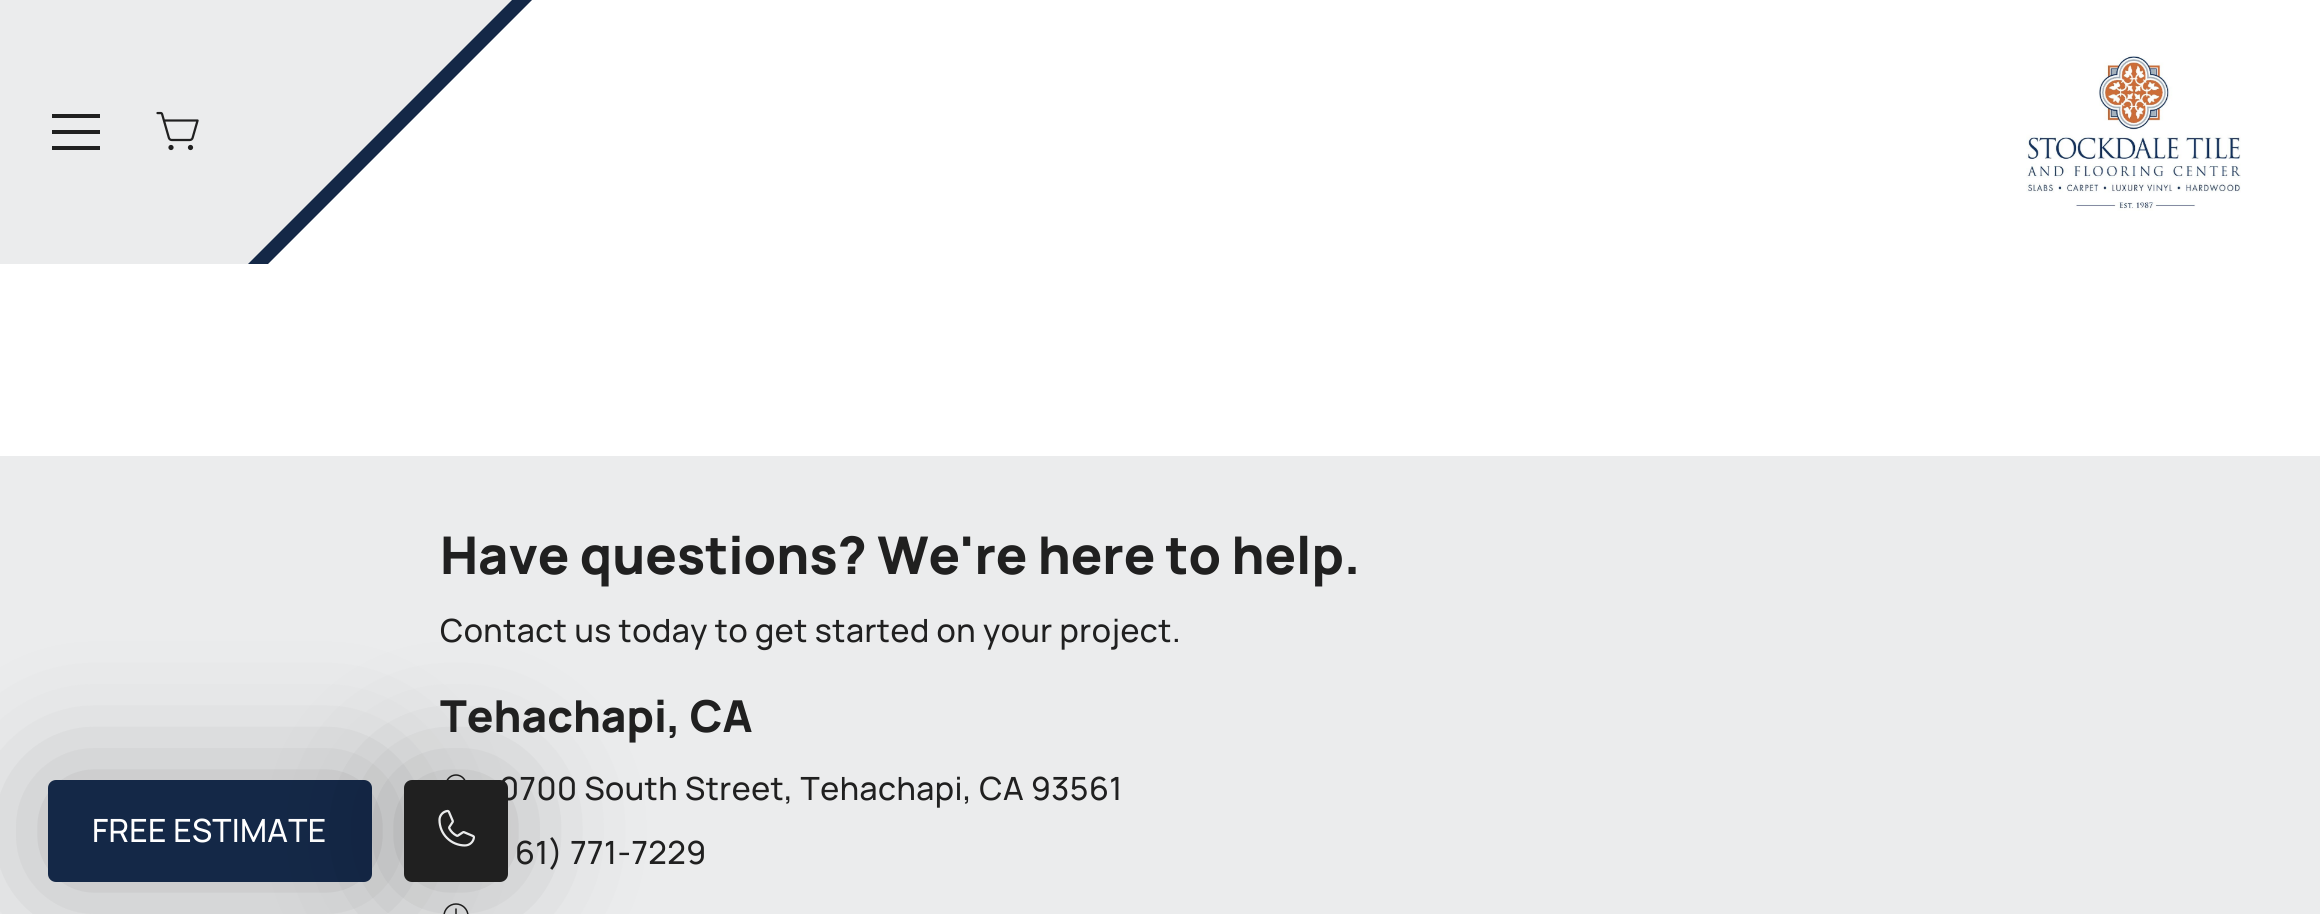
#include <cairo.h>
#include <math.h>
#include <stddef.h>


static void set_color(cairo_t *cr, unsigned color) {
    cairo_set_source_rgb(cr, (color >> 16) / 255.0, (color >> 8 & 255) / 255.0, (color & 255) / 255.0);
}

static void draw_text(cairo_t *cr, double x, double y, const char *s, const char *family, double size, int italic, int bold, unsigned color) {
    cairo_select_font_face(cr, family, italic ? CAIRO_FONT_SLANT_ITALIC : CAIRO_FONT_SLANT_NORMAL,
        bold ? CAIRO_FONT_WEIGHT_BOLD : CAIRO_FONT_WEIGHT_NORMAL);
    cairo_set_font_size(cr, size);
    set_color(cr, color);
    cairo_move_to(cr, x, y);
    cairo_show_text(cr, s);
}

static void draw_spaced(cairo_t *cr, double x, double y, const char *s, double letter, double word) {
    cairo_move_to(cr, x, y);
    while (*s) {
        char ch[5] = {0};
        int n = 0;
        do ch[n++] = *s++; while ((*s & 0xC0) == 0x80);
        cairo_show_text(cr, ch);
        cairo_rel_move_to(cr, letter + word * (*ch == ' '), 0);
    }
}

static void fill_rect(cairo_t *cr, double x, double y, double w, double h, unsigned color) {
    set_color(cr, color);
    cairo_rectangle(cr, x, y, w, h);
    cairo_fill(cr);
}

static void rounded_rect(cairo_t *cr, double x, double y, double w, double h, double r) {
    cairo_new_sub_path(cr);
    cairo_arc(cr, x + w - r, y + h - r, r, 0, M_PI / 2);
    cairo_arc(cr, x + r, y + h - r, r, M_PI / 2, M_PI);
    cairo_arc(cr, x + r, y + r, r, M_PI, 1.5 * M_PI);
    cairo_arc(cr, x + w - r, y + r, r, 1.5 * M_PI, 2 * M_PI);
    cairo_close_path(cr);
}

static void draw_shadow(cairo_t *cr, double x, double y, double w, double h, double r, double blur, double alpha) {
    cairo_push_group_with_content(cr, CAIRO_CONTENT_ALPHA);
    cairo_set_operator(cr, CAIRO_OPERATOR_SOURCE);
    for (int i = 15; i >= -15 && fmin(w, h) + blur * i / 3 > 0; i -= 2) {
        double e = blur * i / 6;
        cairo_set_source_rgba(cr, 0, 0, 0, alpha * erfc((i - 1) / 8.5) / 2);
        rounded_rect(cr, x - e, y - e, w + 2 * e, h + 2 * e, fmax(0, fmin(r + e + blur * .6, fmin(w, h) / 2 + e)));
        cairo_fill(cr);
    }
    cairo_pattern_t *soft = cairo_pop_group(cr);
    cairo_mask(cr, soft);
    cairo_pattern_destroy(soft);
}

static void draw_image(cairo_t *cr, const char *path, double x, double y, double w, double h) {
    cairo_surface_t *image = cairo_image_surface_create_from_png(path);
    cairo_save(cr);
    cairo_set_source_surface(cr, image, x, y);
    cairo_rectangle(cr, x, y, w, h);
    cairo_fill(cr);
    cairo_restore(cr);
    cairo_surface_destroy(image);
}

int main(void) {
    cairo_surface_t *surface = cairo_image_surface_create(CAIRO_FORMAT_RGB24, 2320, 914);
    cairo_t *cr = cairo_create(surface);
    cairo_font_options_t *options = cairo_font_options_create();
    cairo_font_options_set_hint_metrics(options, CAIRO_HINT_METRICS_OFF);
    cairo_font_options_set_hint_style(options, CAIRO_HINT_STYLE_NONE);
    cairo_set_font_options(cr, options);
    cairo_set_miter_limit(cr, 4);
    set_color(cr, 0xFFFFFF);
    cairo_paint(cr);
    set_color(cr, 0xEBECED);
    cairo_new_path(cr);
    cairo_move_to(cr, -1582, 0);
    cairo_line_to(cr, 532, 0);
    cairo_line_to(cr, 268, 264);
    cairo_line_to(cr, -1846, 264);
    cairo_close_path(cr);
    cairo_fill(cr);
    set_color(cr, 0x142847);
    cairo_new_path(cr);
    cairo_move_to(cr, 512, 0);
    cairo_line_to(cr, 532, 0);
    cairo_line_to(cr, 268, 264);
    cairo_line_to(cr, 248, 264);
    cairo_close_path(cr);
    cairo_fill(cr);
    fill_rect(cr, 52, 130, 48, 4, 0x202020);
    fill_rect(cr, 52, 114, 48, 4, 0x202020);
    fill_rect(cr, 52, 146, 48, 4, 0x202020);
    draw_image(cr, "assets/img1.png", 156, 111, 43, 40);
    draw_image(cr, "assets/img2.png", 2026, 55, 215, 156);
    fill_rect(cr, 0, 456, 2320, 458, 0xEBECED);
    draw_image(cr, "assets/img4.png", 446, 774, 20, 6);
    draw_image(cr, "assets/img5.png", 443, 903, 26, 11);
    set_color(cr, 0x000000);
    draw_shadow(cr, 48, 780, 324, 102, 8, 64, 0.25);
    set_color(cr, 0x142847);
    rounded_rect(cr, 50, 782, 320, 98, 6);
    cairo_fill_preserve(cr);
    cairo_set_line_width(cr, 4);
    cairo_stroke(cr);
    cairo_select_font_face(cr, "Manrope Medium", CAIRO_FONT_SLANT_NORMAL, CAIRO_FONT_WEIGHT_NORMAL);
    cairo_set_font_size(cr, 32);
    set_color(cr, 0xFFFFFF);
    draw_spaced(cr, 92, 842, "FREE ESTIMATE", 0.25, 0);
    set_color(cr, 0x000000);
    draw_shadow(cr, 404, 780, 104, 102, 8, 64, 0.25);
    set_color(cr, 0x202020);
    rounded_rect(cr, 406, 782, 100, 98, 6);
    cairo_fill_preserve(cr);
    cairo_stroke(cr);
    draw_image(cr, "assets/img3.png", 438, 809, 37, 38);
    cairo_select_font_face(cr, "Manrope ExtraBold", CAIRO_FONT_SLANT_NORMAL, CAIRO_FONT_WEIGHT_NORMAL);
    cairo_set_font_size(cr, 52);
    draw_spaced(cr, 440, 574, "Have questions? We're here to help.", -0.05, 0);
    cairo_select_font_face(cr, "Manrope Medium", CAIRO_FONT_SLANT_NORMAL, CAIRO_FONT_WEIGHT_NORMAL);
    cairo_set_font_size(cr, 32);
    draw_spaced(cr, 440, 642, "Contact us today to get started on your project.", 0.5, 0);
    draw_text(cr, 440, 732, "Tehachapi, CA", "Manrope ExtraBold", 44, 0, 0, 0x202020);
    cairo_select_font_face(cr, "Manrope Medium", CAIRO_FONT_SLANT_NORMAL, CAIRO_FONT_WEIGHT_NORMAL);
    cairo_set_font_size(cr, 32);
    draw_spaced(cr, 499, 800, "0700 South Street, Tehachapi, CA 93561", 0.5, 0);
    draw_spaced(cr, 515, 864, "61) 771-7229", 0.5, 0);
    cairo_surface_write_to_png(surface, "output.png");
    cairo_font_options_destroy(options);
    cairo_destroy(cr);
    cairo_surface_destroy(surface);
    return 0;
}
